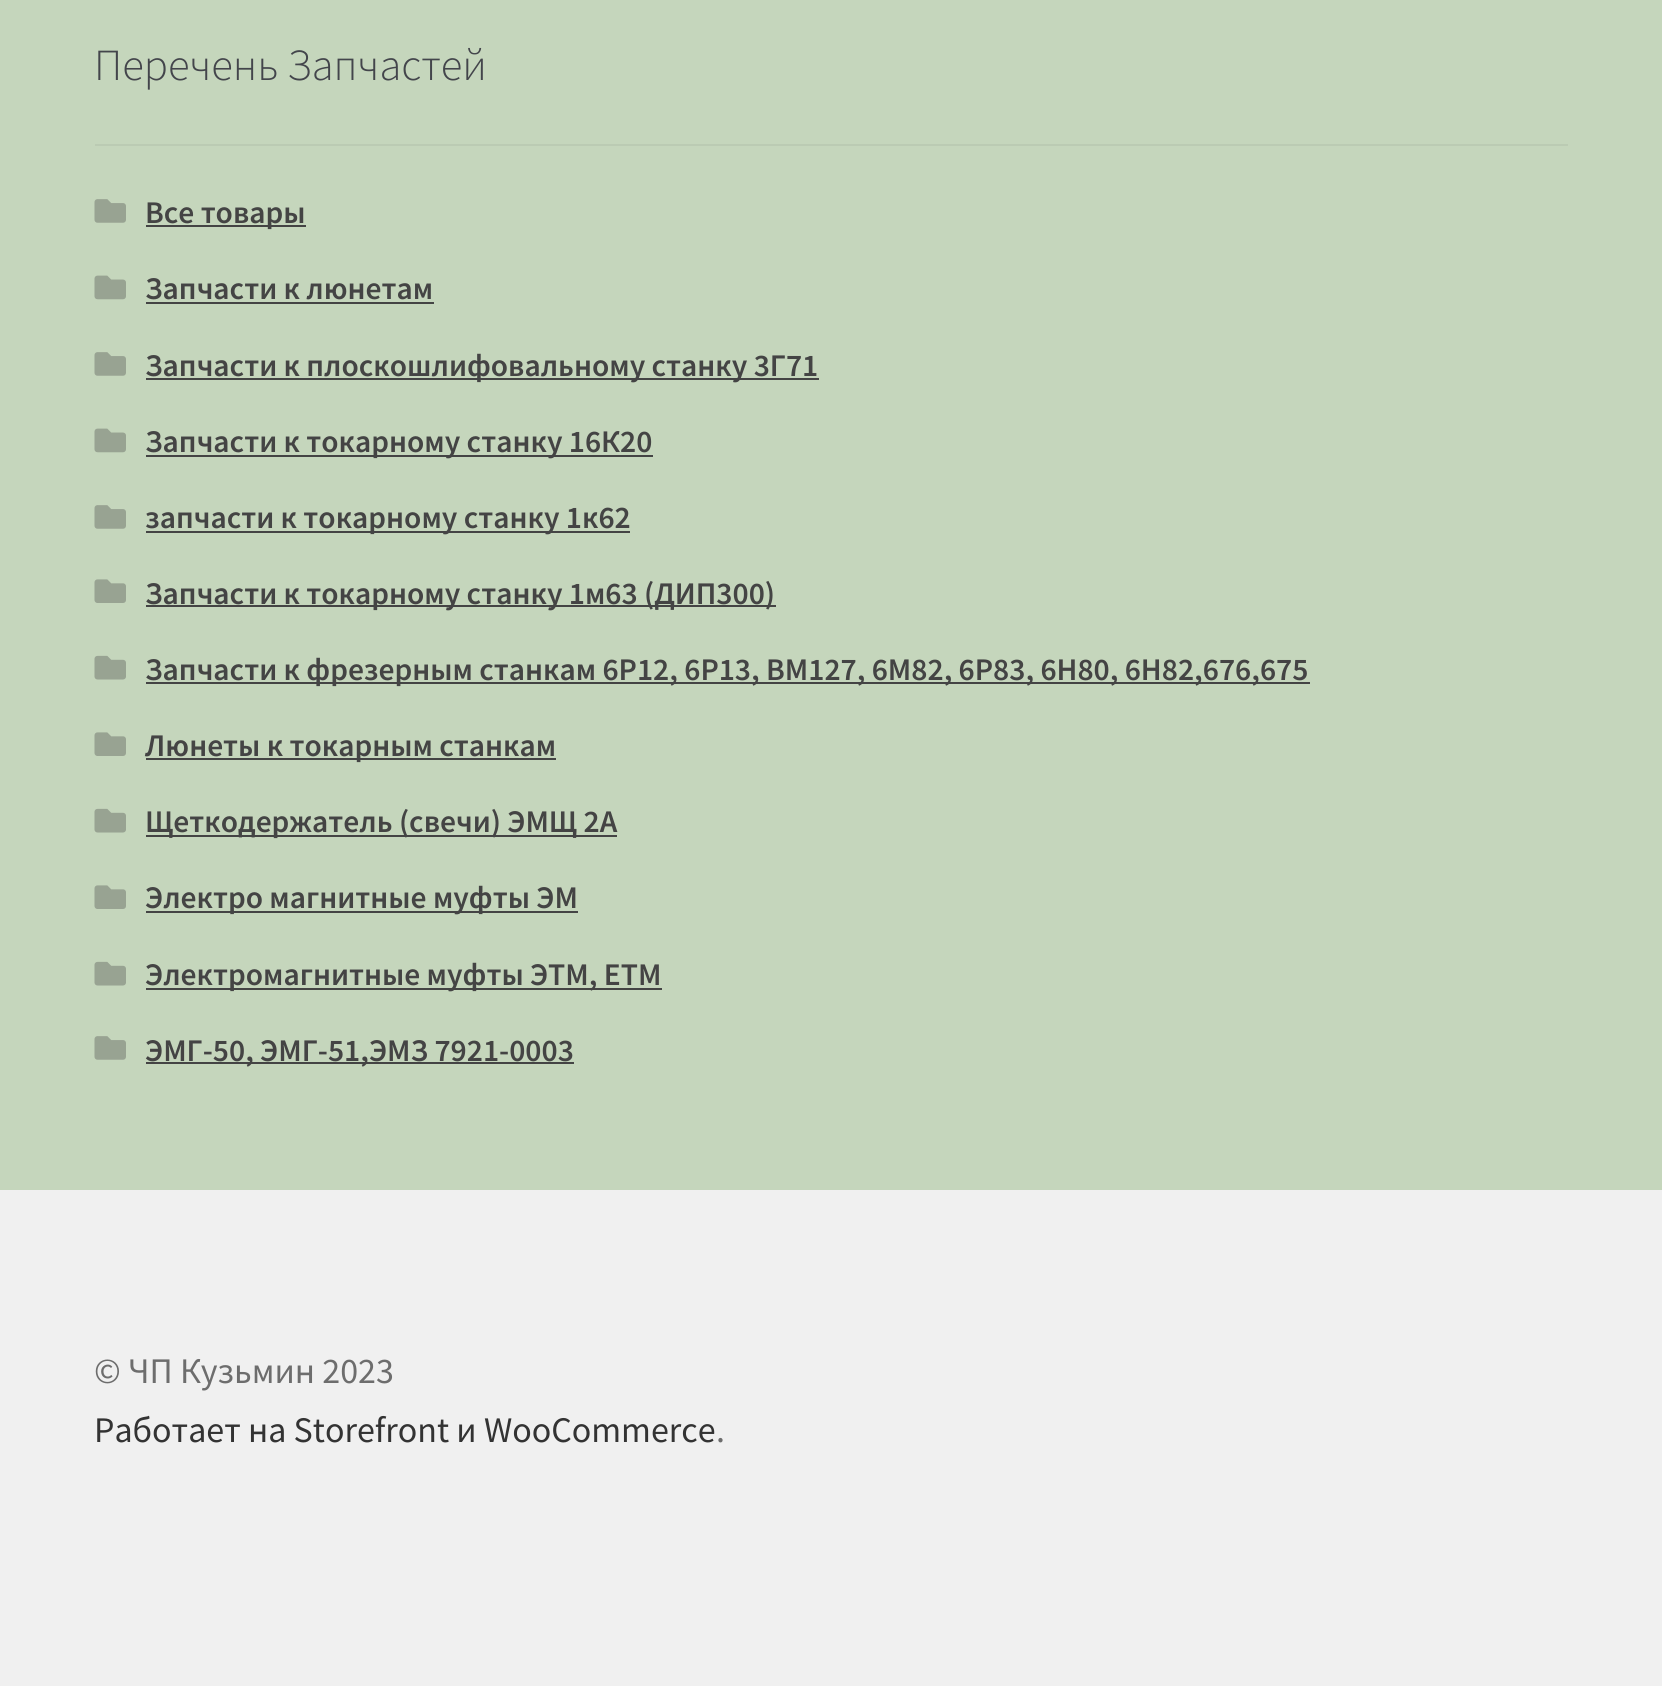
#include <cairo.h>
#include <math.h>
#include <stddef.h>


static void set_color(cairo_t *cr, unsigned color) {
    cairo_set_source_rgb(cr, (color >> 16) / 255.0, (color >> 8 & 255) / 255.0, (color & 255) / 255.0);
}

static void draw_text(cairo_t *cr, double x, double y, const char *s, const char *family, double size, int italic, int bold, unsigned color) {
    cairo_select_font_face(cr, family, italic ? CAIRO_FONT_SLANT_ITALIC : CAIRO_FONT_SLANT_NORMAL,
        bold ? CAIRO_FONT_WEIGHT_BOLD : CAIRO_FONT_WEIGHT_NORMAL);
    cairo_set_font_size(cr, size);
    set_color(cr, color);
    cairo_move_to(cr, x, y);
    cairo_show_text(cr, s);
}

static void fill_rect(cairo_t *cr, double x, double y, double w, double h, unsigned color) {
    set_color(cr, color);
    cairo_rectangle(cr, x, y, w, h);
    cairo_fill(cr);
}

static void draw_image(cairo_t *cr, const char *path, double x, double y, double w, double h) {
    cairo_surface_t *image = cairo_image_surface_create_from_png(path);
    cairo_save(cr);
    cairo_set_source_surface(cr, image, x, y);
    cairo_rectangle(cr, x, y, w, h);
    cairo_fill(cr);
    cairo_restore(cr);
    cairo_surface_destroy(image);
}

int main(void) {
    cairo_surface_t *surface = cairo_image_surface_create(CAIRO_FORMAT_RGB24, 1662, 1686);
    cairo_t *cr = cairo_create(surface);
    cairo_font_options_t *options = cairo_font_options_create();
    cairo_font_options_set_hint_metrics(options, CAIRO_HINT_METRICS_OFF);
    cairo_font_options_set_hint_style(options, CAIRO_HINT_STYLE_NONE);
    cairo_set_font_options(cr, options);
    cairo_set_miter_limit(cr, 4);
    set_color(cr, 0xC5D6BC);
    cairo_paint(cr);
    fill_rect(cr, 95, 144, 1473, 2, 0xBBCBB3);
    draw_text(cr, 94, 80, "Перечень Запчастей", "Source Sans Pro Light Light", 44.5, 0, 0, 0x43454B);
    draw_image(cr, "assets/img1.png", 94, 199, 32, 24);
    fill_rect(cr, 146, 225, 160, 2, 0x444444);
    draw_text(cr, 145, 223, "Все товары", "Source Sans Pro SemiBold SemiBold", 31.5, 0, 0, 0x444444);
    draw_image(cr, "assets/img2.png", 94, 275, 32, 25);
    draw_text(cr, 145, 299, "Запчасти к люнетам", "Source Sans Pro SemiBold SemiBold", 31.5, 0, 0, 0x444444);
    fill_rect(cr, 146, 302, 288, 2, 0x444444);
    draw_image(cr, "assets/img1.png", 94, 352, 32, 24);
    fill_rect(cr, 146, 378, 673, 2, 0x444444);
    draw_text(cr, 145, 376, "Запчасти к плоскошлифовальному станку 3Г71", "Source Sans Pro SemiBold SemiBold", 31.5, 0, 0, 0x444444);
    draw_image(cr, "assets/img2.png", 94, 428, 32, 25);
    fill_rect(cr, 146, 455, 507, 2, 0x444444);
    draw_text(cr, 145, 452, "Запчасти к токарному станку 16К20", "Source Sans Pro SemiBold SemiBold", 31.5, 0, 0, 0x444444);
    draw_image(cr, "assets/img1.png", 94, 505, 32, 24);
    fill_rect(cr, 146, 531, 484, 2, 0x444444);
    draw_text(cr, 145, 528, "запчасти к токарному станку 1к62", "Source Sans Pro SemiBold SemiBold", 31.5, 0, 0, 0x444444);
    draw_image(cr, "assets/img3.png", 94, 579, 32, 24);
    fill_rect(cr, 146, 605, 630, 2, 0x444444);
    draw_text(cr, 145, 604, "Запчасти к токарному станку 1м63 (ДИП300)", "Source Sans Pro SemiBold SemiBold", 31.5, 0, 0, 0x444444);
    draw_image(cr, "assets/img4.png", 94, 655, 32, 25);
    fill_rect(cr, 146, 682, 1164, 2, 0x444444);
    draw_text(cr, 145, 680, "Запчасти к фрезерным станкам 6Р12, 6Р13, ВМ127, 6М82, 6Р83, 6Н80, 6Н82,676,675", "Source Sans Pro SemiBold SemiBold", 31.5, 0, 0, 0x444444);
    draw_image(cr, "assets/img3.png", 94, 732, 32, 24);
    fill_rect(cr, 146, 758, 410, 2, 0x444444);
    draw_text(cr, 145, 756, "Люнеты к токарным станкам", "Source Sans Pro SemiBold SemiBold", 31.5, 0, 0, 0x444444);
    draw_image(cr, "assets/img4.png", 94, 808, 32, 25);
    fill_rect(cr, 146, 835, 471, 2, 0x444444);
    draw_text(cr, 145, 832, "Щеткодержатель (свечи) ЭМЩ 2А", "Source Sans Pro SemiBold SemiBold", 31.5, 0, 0, 0x444444);
    draw_image(cr, "assets/img3.png", 94, 885, 32, 24);
    fill_rect(cr, 146, 911, 432, 2, 0x444444);
    draw_text(cr, 145, 908, "Электро магнитные муфты ЭМ", "Source Sans Pro SemiBold SemiBold", 31.5, 0, 0, 0x444444);
    draw_image(cr, "assets/img4.png", 94, 961, 32, 25);
    fill_rect(cr, 146, 988, 516, 2, 0x444444);
    draw_text(cr, 145, 985, "Электромагнитные муфты ЭТМ, ЕТМ", "Source Sans Pro SemiBold SemiBold", 31.5, 0, 0, 0x444444);
    draw_image(cr, "assets/img1.png", 94, 1036, 32, 24);
    fill_rect(cr, 146, 1062, 428, 2, 0x444444);
    draw_text(cr, 145, 1061, "ЭМГ-50, ЭМГ-51,ЭМЗ 7921-0003", "Source Sans Pro SemiBold SemiBold", 31.5, 0, 0, 0x444444);
    fill_rect(cr, 0, 1190, 1662, 496, 0xF0F0F0);
    draw_text(cr, 94, 1383, "© ЧП Кузьмин 2023", "Source Sans Pro", 36, 0, 0, 0x6D6D6D);
    draw_text(cr, 94, 1442, "Работает на Storefront и WooCommerce", "Source Sans Pro", 36, 0, 0, 0x333333);
    draw_text(cr, 716, 1442, ".", "Source Sans Pro", 36, 0, 0, 0x6D6D6D);
    cairo_surface_write_to_png(surface, "output.png");
    cairo_font_options_destroy(options);
    cairo_destroy(cr);
    cairo_surface_destroy(surface);
    return 0;
}
